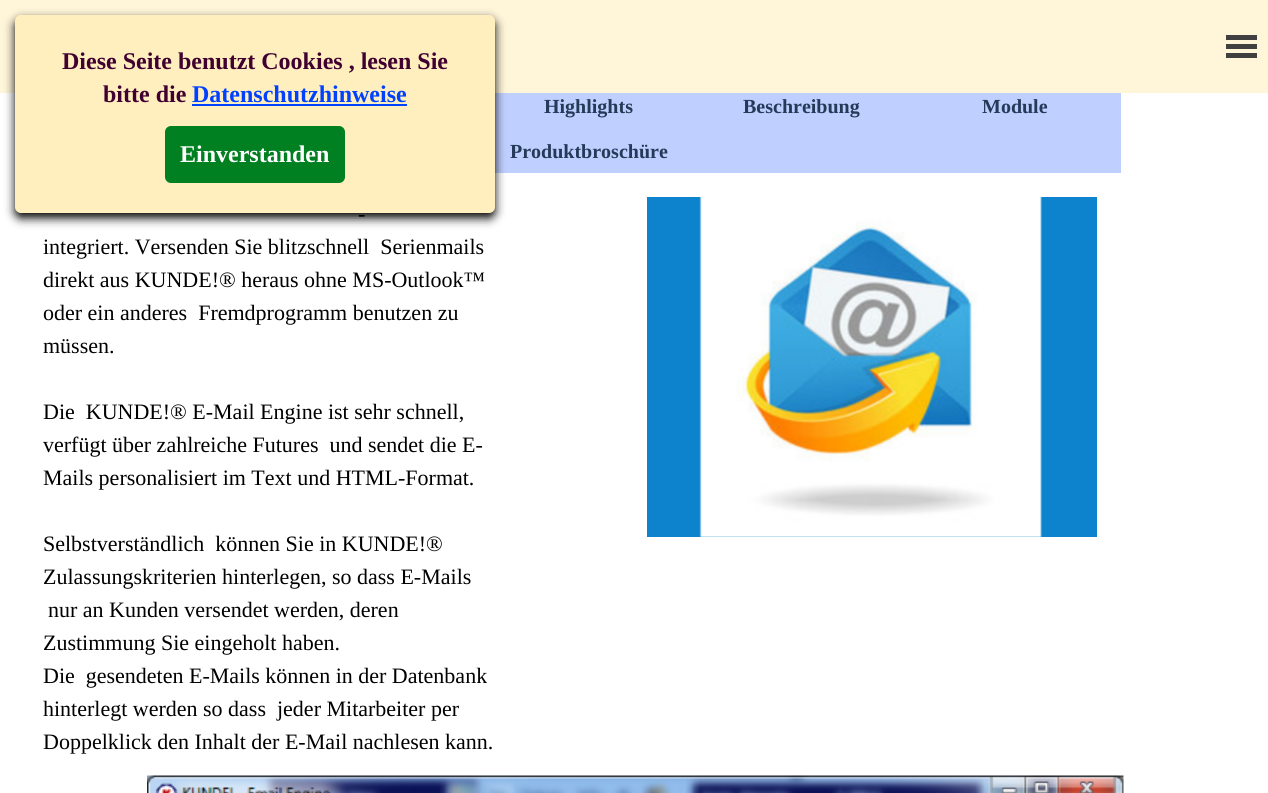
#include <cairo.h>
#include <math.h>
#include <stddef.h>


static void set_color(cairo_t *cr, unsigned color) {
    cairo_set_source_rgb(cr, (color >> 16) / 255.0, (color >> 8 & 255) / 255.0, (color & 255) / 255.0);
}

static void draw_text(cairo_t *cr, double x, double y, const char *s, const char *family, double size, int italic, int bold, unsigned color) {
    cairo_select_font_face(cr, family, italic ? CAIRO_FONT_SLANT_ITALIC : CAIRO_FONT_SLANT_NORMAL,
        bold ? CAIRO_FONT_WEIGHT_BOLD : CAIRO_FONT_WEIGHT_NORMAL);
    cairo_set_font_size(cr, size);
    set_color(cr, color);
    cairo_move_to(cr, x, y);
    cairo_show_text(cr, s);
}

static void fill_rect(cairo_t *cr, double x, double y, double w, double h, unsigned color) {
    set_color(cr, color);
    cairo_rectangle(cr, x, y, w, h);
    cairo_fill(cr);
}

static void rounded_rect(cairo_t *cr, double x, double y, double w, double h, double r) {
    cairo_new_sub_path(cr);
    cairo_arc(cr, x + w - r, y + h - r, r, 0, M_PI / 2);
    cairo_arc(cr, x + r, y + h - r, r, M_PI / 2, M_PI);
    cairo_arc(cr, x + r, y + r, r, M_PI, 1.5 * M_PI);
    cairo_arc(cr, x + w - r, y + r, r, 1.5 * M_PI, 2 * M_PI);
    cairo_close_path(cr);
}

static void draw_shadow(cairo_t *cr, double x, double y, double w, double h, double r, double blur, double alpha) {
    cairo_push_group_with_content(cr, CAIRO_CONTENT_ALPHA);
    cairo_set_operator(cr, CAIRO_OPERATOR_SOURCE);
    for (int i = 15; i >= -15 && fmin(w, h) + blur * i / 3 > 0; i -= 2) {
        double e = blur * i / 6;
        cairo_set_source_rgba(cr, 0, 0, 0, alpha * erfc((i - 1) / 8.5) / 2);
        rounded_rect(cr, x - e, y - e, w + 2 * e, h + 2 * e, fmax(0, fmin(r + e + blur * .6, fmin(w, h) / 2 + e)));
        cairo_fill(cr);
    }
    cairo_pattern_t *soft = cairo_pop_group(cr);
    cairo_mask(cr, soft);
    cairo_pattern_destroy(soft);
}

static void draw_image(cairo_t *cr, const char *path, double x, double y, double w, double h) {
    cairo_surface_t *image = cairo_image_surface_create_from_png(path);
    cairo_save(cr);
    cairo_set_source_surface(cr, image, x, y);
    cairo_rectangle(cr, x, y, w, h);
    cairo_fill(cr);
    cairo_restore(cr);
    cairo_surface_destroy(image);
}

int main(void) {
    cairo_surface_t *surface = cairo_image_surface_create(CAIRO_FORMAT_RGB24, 1268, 793);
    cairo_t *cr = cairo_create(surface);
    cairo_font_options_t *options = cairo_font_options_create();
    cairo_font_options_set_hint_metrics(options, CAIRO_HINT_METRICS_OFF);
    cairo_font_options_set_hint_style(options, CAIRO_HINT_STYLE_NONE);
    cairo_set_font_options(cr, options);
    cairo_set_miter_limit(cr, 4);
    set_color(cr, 0xFFFFFF);
    cairo_paint(cr);
    fill_rect(cr, 0, 0, 1268, 93, 0xFFF5D9);
    fill_rect(cr, 495, 93, 626, 80, 0xBFCFFF);
    set_color(cr, 0x000000);
    draw_shadow(cr, 15, 20, 480, 198, 6, 5, 1);
    set_color(cr, 0xFFEFBF);
    rounded_rect(cr, 15, 15, 480, 198, 6);
    cairo_fill(cr);
    draw_text(cr, 62, 69, "Diese Seite benutzt Cookies , lesen Sie", "Liberation Serif", 24, 0, 1, 0x400030);
    draw_text(cr, 103, 102, "bitte die", "Liberation Serif", 24, 0, 1, 0x400030);
    draw_text(cr, 192, 102, "Datenschutzhinweise", "Liberation Serif", 24, 0, 1, 0x0040FF);
    fill_rect(cr, 192, 104, 215, 2, 0x0040FF);
    set_color(cr, 0x008020);
    rounded_rect(cr, 165, 126, 180, 57, 6);
    cairo_fill(cr);
    draw_text(cr, 180, 162, "Einverstanden", "Liberation Serif", 24, 0, 1, 0xFFFFFF);
    fill_rect(cr, 1226, 35, 31, 5, 0x404040);
    fill_rect(cr, 1226, 44, 31, 5, 0x404040);
    fill_rect(cr, 1226, 53, 31, 5, 0x404040);
    draw_text(cr, 544, 113, "Highlights", "Liberation Serif", 20, 0, 1, 0x253A58);
    draw_text(cr, 743, 113, "Beschreibung", "Liberation Serif", 20, 0, 1, 0x253A58);
    draw_text(cr, 982, 113, "Module", "Liberation Serif", 20, 0, 1, 0x253A58);
    draw_text(cr, 510, 158, "Produktbroschüre", "Liberation Serif", 20, 0, 1, 0x253A58);
    draw_text(cr, 358, 221, "-", "Liberation Serif", 22, 0, 0, 0x000000);
    draw_text(cr, 43, 254, "integriert. Versenden Sie blitzschnell  Serienmails", "Liberation Serif", 22, 0, 0, 0x000000);
    draw_text(cr, 43, 287, "direkt aus KUNDE!® heraus ohne MS-Outlook™", "Liberation Serif", 22, 0, 0, 0x000000);
    draw_text(cr, 43, 320, "oder ein anderes  Fremdprogramm benutzen zu", "Liberation Serif", 22, 0, 0, 0x000000);
    draw_text(cr, 43, 353, "müssen.", "Liberation Serif", 22, 0, 0, 0x000000);
    draw_text(cr, 43, 419, "Die  KUNDE!® E-Mail Engine ist sehr schnell,", "Liberation Serif", 22, 0, 0, 0x000000);
    draw_text(cr, 43, 452, "verfügt über zahlreiche Futures  und sendet die E-", "Liberation Serif", 22, 0, 0, 0x000000);
    draw_text(cr, 43, 485, "Mails personalisiert im Text und HTML-Format.", "Liberation Serif", 22, 0, 0, 0x000000);
    draw_text(cr, 43, 551, "Selbstverständlich  können Sie in KUNDE!®", "Liberation Serif", 22, 0, 0, 0x000000);
    draw_text(cr, 43, 584, "Zulassungskriterien hinterlegen, so dass E-Mails", "Liberation Serif", 22, 0, 0, 0x000000);
    draw_text(cr, 48, 617, "nur an Kunden versendet werden, deren", "Liberation Serif", 22, 0, 0, 0x000000);
    draw_text(cr, 43, 650, "Zustimmung Sie eingeholt haben.", "Liberation Serif", 22, 0, 0, 0x000000);
    draw_text(cr, 43, 683, "Die  gesendeten E-Mails können in der Datenbank", "Liberation Serif", 22, 0, 0, 0x000000);
    draw_text(cr, 43, 716, "hinterlegt werden so dass  jeder Mitarbeiter per", "Liberation Serif", 22, 0, 0, 0x000000);
    draw_text(cr, 43, 749, "Doppelklick den Inhalt der E-Mail nachlesen kann.", "Liberation Serif", 22, 0, 0, 0x000000);
    fill_rect(cr, 647, 197, 450, 340, 0x0E83CD);
    draw_image(cr, "assets/img1.png", 699, 197, 343, 340);
    draw_image(cr, "assets/img2.png", 147, 775, 977, 18);
    cairo_surface_write_to_png(surface, "output.png");
    cairo_font_options_destroy(options);
    cairo_destroy(cr);
    cairo_surface_destroy(surface);
    return 0;
}
